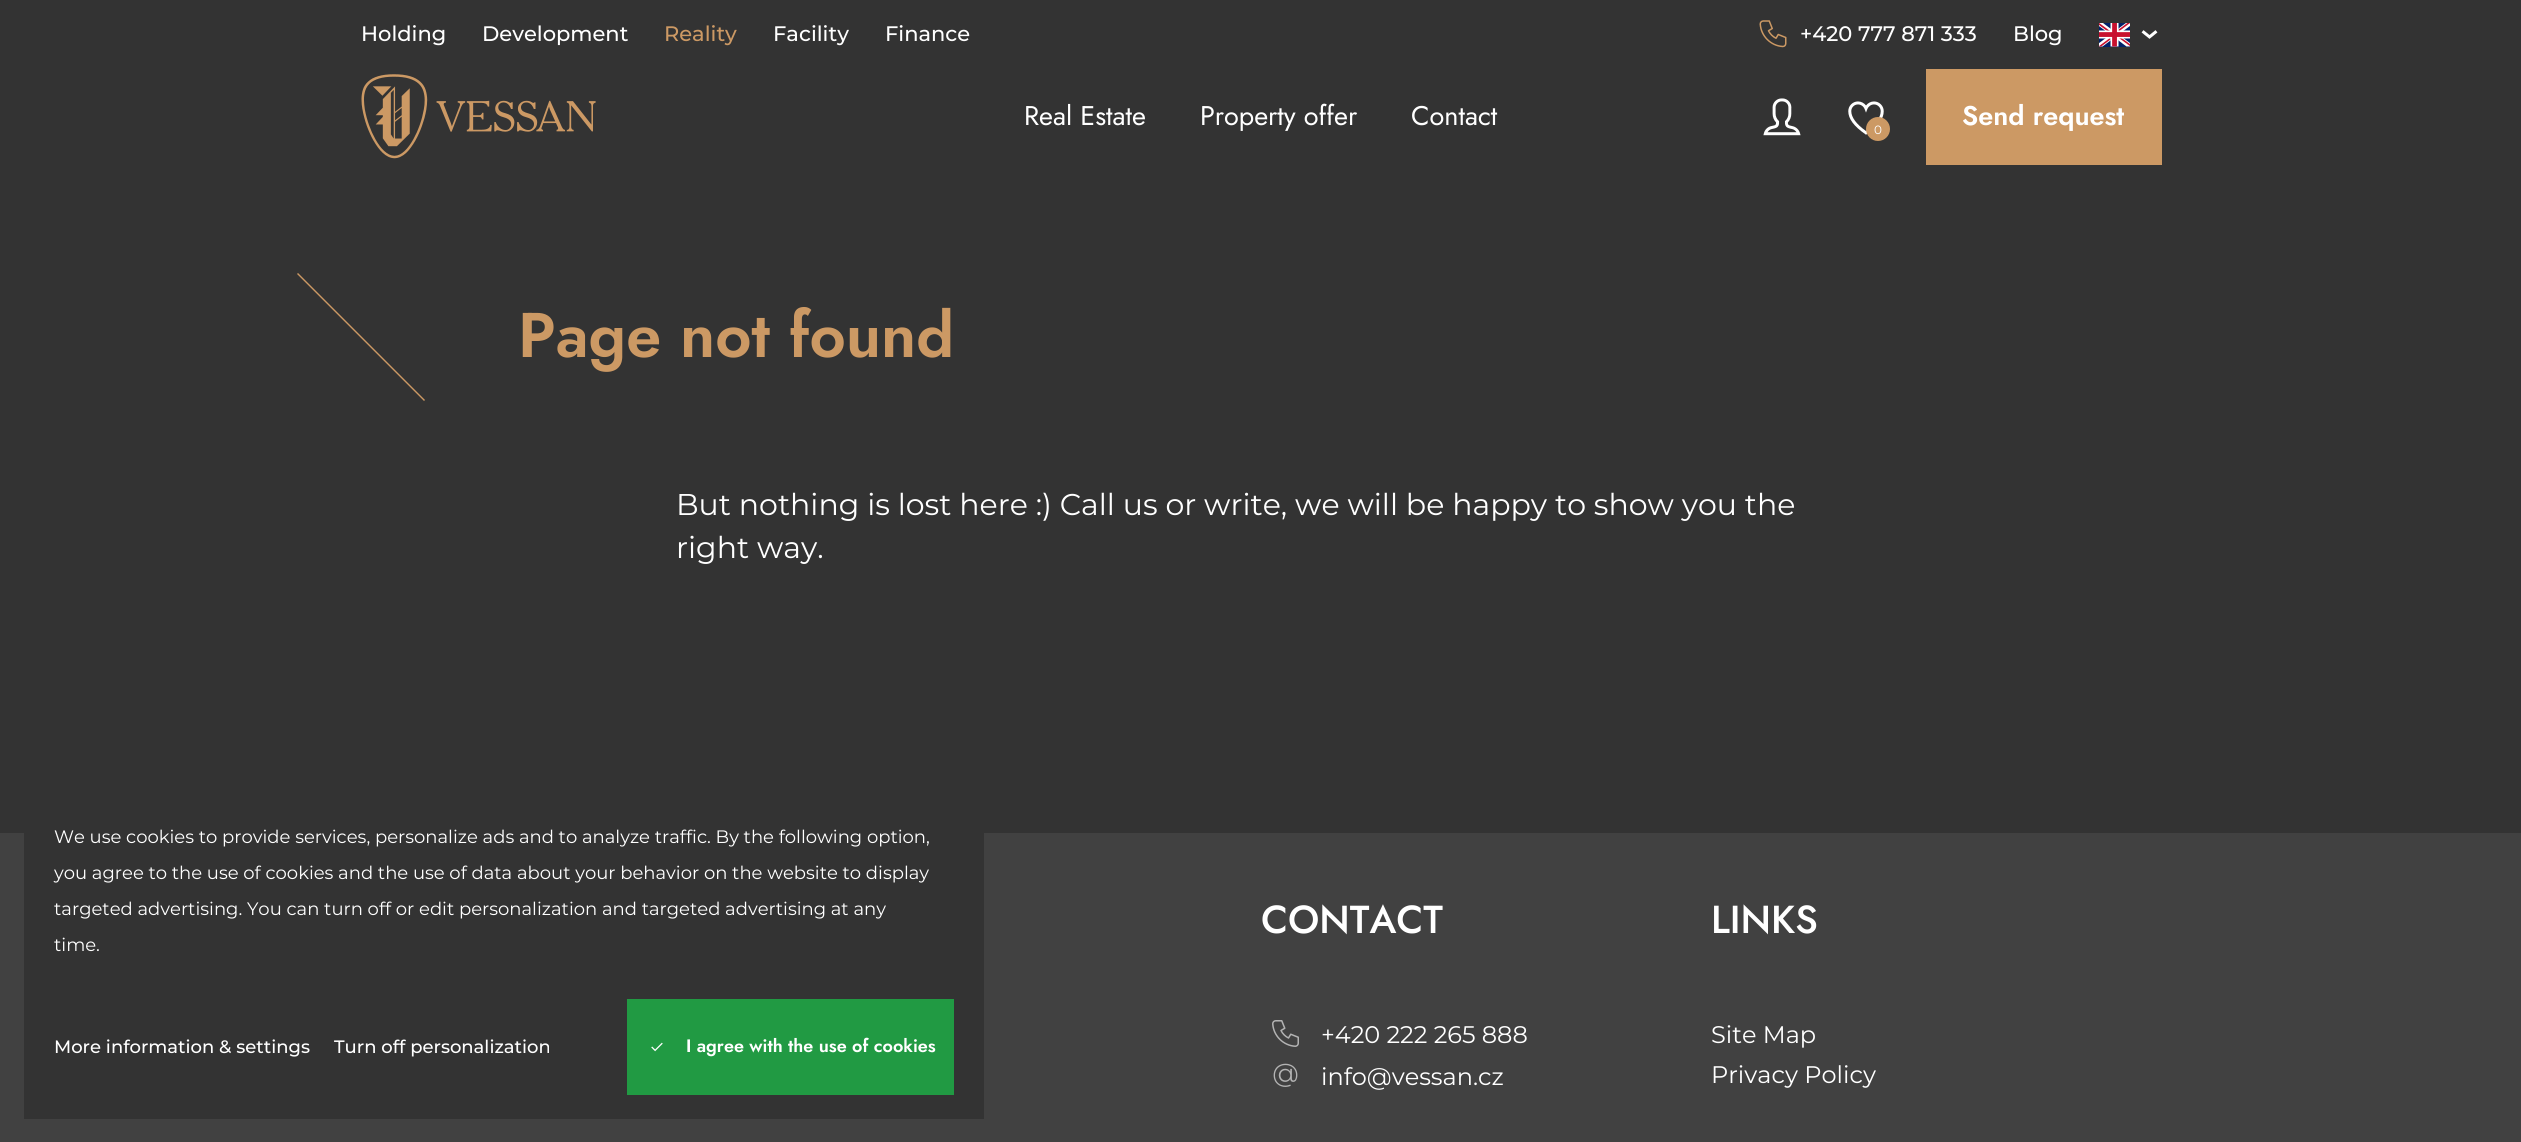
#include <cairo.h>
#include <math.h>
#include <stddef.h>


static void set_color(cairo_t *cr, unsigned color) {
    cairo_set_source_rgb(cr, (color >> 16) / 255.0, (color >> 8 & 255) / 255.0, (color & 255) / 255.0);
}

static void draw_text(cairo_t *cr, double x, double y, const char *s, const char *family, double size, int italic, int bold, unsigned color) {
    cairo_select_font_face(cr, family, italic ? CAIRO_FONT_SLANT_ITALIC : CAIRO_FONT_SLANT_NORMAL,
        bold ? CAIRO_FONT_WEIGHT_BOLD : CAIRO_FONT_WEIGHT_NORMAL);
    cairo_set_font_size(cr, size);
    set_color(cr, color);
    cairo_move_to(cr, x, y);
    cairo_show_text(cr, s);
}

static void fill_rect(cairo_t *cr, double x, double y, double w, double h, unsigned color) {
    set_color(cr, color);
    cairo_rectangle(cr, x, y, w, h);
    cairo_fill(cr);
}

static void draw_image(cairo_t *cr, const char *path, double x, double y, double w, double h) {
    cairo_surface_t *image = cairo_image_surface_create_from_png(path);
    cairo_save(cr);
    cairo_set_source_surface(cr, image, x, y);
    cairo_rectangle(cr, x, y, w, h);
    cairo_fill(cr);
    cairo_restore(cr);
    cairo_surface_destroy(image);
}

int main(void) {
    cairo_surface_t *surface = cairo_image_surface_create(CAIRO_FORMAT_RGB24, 2521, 1142);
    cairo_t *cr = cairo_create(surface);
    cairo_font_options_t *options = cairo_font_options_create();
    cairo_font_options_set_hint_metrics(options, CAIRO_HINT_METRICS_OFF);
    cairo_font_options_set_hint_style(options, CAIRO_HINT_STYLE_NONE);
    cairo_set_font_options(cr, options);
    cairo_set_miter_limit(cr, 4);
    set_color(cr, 0x333333);
    cairo_paint(cr);
    draw_text(cr, 361, 41, "Holding", "Montserrat Medium", 21, 0, 0, 0xFFFFFF);
    draw_text(cr, 482, 41, "Development", "Montserrat Medium", 21, 0, 0, 0xFFFFFF);
    draw_text(cr, 664, 41, "Reality", "Montserrat Medium", 21, 0, 0, 0xCC9964);
    draw_text(cr, 773, 41, "Facility", "Montserrat Medium", 21, 0, 0, 0xFFFFFF);
    draw_text(cr, 885, 41, "Finance", "Montserrat Medium", 21, 0, 0, 0xFFFFFF);
    draw_image(cr, "assets/img1.png", 1759, 20, 28, 28);
    draw_text(cr, 1800, 41, "+420 777 871 333", "Montserrat Medium", 21, 0, 0, 0xFFFFFF);
    draw_text(cr, 2013, 41, "Blog", "Montserrat Medium", 21, 0, 0, 0xFFFFFF);
    draw_image(cr, "assets/img2.png", 2099, 23, 31, 24);
    draw_image(cr, "assets/img3.png", 2141, 30, 17, 9);
    draw_image(cr, "assets/img4.png", 361, 74, 235, 85);
    draw_text(cr, 1024, 125, "Real Estate", "Jost", 27, 0, 0, 0xFFFFFF);
    draw_text(cr, 1200, 125, "Property offer", "Jost", 27, 0, 0, 0xFFFFFF);
    draw_text(cr, 1411, 125, "Contact", "Jost", 27, 0, 0, 0xFFFFFF);
    draw_image(cr, "assets/img5.png", 1763, 98, 38, 38);
    draw_image(cr, "assets/img6.png", 1848, 101, 36, 34);
    set_color(cr, 0xCC9964);
    cairo_arc(cr, 1878, 129, 12, 0, 2 * M_PI);
    cairo_fill(cr);
    draw_text(cr, 1874, 134, "0", "Montserrat", 12, 0, 0, 0xFFFFFF);
    fill_rect(cr, 1926, 69, 236, 96, 0xCC9964);
    draw_text(cr, 1962, 125, "Send request", "Jost SemiBold", 27, 0, 0, 0xFFFFFF);
    set_color(cr, 0xCC9964);
    cairo_new_path(cr);
    cairo_move_to(cr, 298, 273);
    cairo_line_to(cr, 425, 400);
    cairo_line_to(cr, 424, 401);
    cairo_line_to(cr, 297, 274);
    cairo_close_path(cr);
    cairo_fill(cr);
    draw_text(cr, 518, 357, "Page not found", "Jost SemiBold", 63, 0, 0, 0xCC9964);
    draw_text(cr, 676, 515, "But nothing is lost here :) Call us or write, we will be happy to show you the", "Montserrat", 30, 0, 0, 0xFFFFFF);
    draw_text(cr, 676, 558, "right way.", "Montserrat", 30, 0, 0, 0xFFFFFF);
    fill_rect(cr, 0, 833, 2521, 309, 0x414141);
    draw_text(cr, 1261, 933, "CONTACT", "Jost Medium", 39, 0, 0, 0xFFFFFF);
    draw_image(cr, "assets/img7.png", 1272, 1020, 27, 27);
    draw_text(cr, 1321, 1043, "+420 222 265 888", "Montserrat", 24, 0, 0, 0xFFFFFF);
    draw_image(cr, "assets/img8.png", 1273, 1063, 25, 24);
    draw_text(cr, 1321, 1085, "info@vessan.cz", "Montserrat", 24, 0, 0, 0xFFFFFF);
    draw_text(cr, 1711, 933, "LINKS", "Jost Medium", 39, 0, 0, 0xFFFFFF);
    draw_text(cr, 1711, 1043, "Site Map", "Montserrat", 24, 0, 0, 0xFFFFFF);
    draw_text(cr, 1711, 1083, "Privacy Policy", "Montserrat", 24, 0, 0, 0xFFFFFF);
    fill_rect(cr, 24, 833, 960, 286, 0x333333);
    draw_text(cr, 54, 843, "We use cookies to provide services, personalize ads and to analyze traffic. By the following option,", "Montserrat", 18, 0, 0, 0xFFFFFF);
    draw_text(cr, 54, 879, "you agree to the use of cookies and the use of data about your behavior on the website to display", "Montserrat", 18, 0, 0, 0xFFFFFF);
    draw_text(cr, 54, 915, "targeted advertising. You can turn off or edit personalization and targeted advertising at any", "Montserrat", 18, 0, 0, 0xFFFFFF);
    draw_text(cr, 54, 951, "time.", "Montserrat", 18, 0, 0, 0xFFFFFF);
    draw_text(cr, 54, 1053, "More information & settings", "Montserrat Medium", 18, 0, 0, 0xFFFFFF);
    draw_text(cr, 334, 1053, "Turn off personalization", "Montserrat Medium", 18, 0, 0, 0xFFFFFF);
    fill_rect(cr, 627, 999, 327, 96, 0x219A43);
    draw_image(cr, "assets/img9.png", 651, 1042, 12, 10);
    draw_text(cr, 686, 1052, "I agree with the use of cookies", "Jost SemiBold", 18, 0, 0, 0xFFFFFF);
    cairo_surface_write_to_png(surface, "output.png");
    cairo_font_options_destroy(options);
    cairo_destroy(cr);
    cairo_surface_destroy(surface);
    return 0;
}
